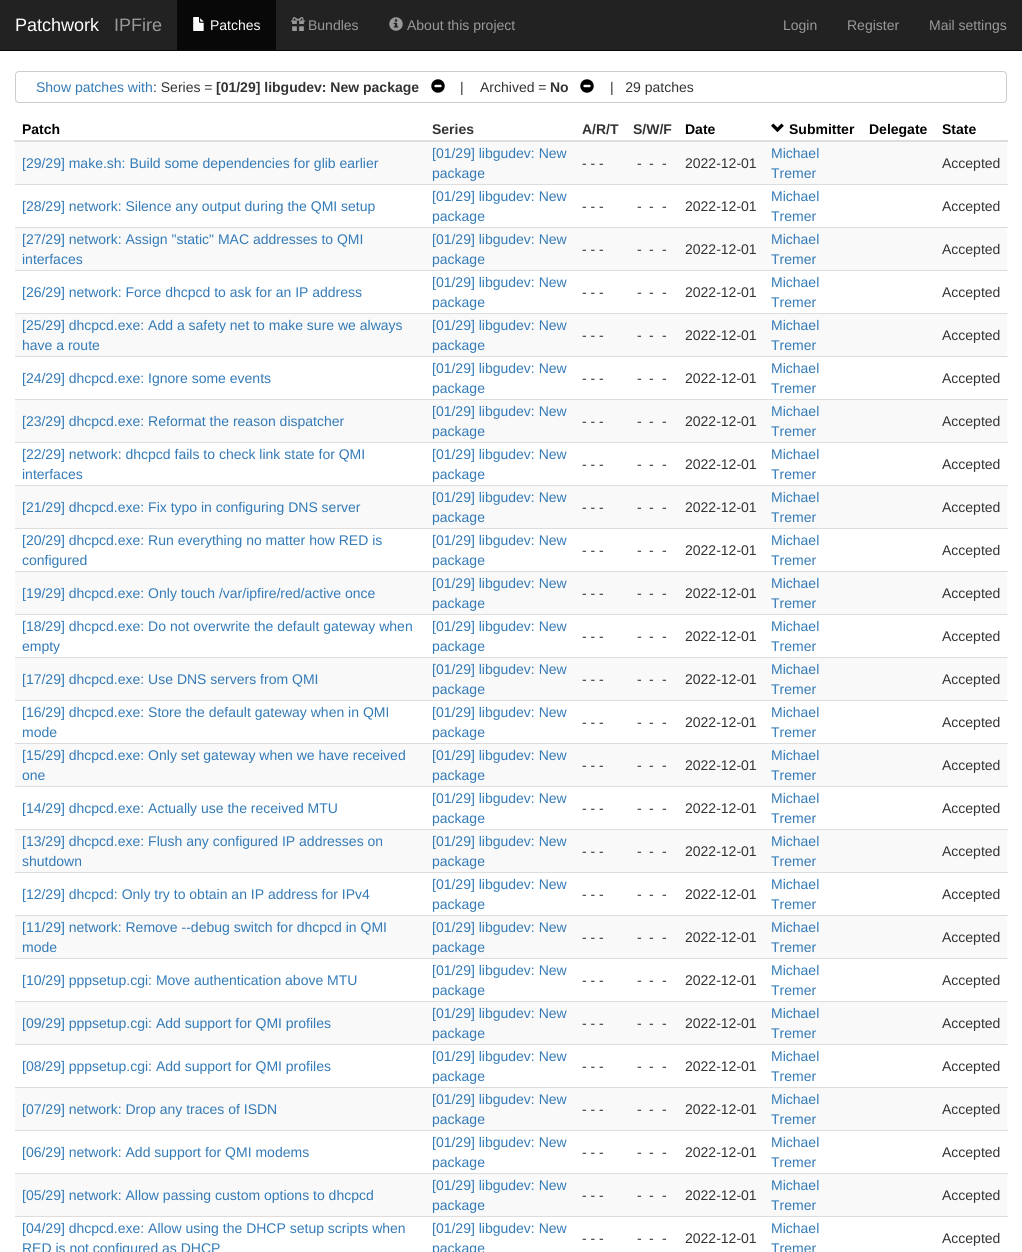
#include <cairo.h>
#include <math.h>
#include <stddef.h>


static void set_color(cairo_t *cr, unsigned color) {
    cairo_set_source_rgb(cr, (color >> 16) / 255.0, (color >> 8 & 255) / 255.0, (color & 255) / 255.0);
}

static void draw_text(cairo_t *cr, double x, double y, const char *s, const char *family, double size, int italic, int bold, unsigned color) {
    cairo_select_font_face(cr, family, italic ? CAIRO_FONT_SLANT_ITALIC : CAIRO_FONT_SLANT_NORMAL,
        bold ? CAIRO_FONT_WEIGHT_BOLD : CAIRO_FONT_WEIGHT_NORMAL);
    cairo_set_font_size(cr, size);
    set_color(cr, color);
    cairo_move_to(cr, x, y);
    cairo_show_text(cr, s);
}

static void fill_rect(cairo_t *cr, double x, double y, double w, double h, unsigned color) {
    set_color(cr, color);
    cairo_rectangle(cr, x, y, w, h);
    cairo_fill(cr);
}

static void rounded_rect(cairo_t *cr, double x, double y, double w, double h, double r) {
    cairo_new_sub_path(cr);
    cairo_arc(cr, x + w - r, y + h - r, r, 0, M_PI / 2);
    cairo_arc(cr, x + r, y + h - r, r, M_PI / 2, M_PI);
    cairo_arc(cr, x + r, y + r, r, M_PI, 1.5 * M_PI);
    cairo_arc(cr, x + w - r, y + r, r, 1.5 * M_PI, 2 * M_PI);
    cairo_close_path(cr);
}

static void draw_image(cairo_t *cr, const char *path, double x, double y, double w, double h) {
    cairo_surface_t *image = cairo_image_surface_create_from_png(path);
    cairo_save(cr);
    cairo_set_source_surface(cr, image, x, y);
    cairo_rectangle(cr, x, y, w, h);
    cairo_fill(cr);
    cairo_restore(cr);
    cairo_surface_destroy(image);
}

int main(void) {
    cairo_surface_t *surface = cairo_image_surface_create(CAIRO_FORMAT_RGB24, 1022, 1252);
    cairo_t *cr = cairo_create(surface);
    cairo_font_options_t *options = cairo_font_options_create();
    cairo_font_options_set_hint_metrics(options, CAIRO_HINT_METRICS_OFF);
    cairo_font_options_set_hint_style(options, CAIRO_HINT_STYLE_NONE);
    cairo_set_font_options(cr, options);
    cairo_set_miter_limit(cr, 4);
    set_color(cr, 0xFFFFFF);
    cairo_paint(cr);
    fill_rect(cr, 0, 0, 1022, 50, 0x222222);
    fill_rect(cr, 0, 50, 1022, 1, 0x080808);
    draw_text(cr, 15, 31, "Patchwork", "Liberation Sans", 18, 0, 0, 0xFFFFFF);
    draw_text(cr, 114, 31, "IPFire", "Liberation Sans", 18, 0, 0, 0x999999);
    fill_rect(cr, 177, 0, 99, 50, 0x080808);
    draw_image(cr, "assets/img1.png", 193, 17, 11, 14);
    draw_text(cr, 210, 30, "Patches", "Liberation Sans", 14, 0, 0, 0xFFFFFF);
    draw_image(cr, "assets/img2.png", 291, 17, 14, 14);
    draw_text(cr, 308, 30, "Bundles", "Liberation Sans", 14, 0, 0, 0x999999);
    draw_image(cr, "assets/img3.png", 389, 17, 14, 14);
    draw_text(cr, 407, 30, "About this project", "Liberation Sans", 14, 0, 0, 0x999999);
    draw_text(cr, 783, 30, "Login", "Liberation Sans", 14, 0, 0, 0x999999);
    draw_text(cr, 847, 30, "Register", "Liberation Sans", 14, 0, 0, 0x999999);
    draw_text(cr, 929, 30, "Mail settings", "Liberation Sans", 14, 0, 0, 0x999999);
    rounded_rect(cr, 15.5, 71.5, 991, 31, 3.5);
    set_color(cr, 0xCCCCCC);
    cairo_set_line_width(cr, 1);
    cairo_stroke(cr);
    draw_text(cr, 36, 92, "Show patches with", "Liberation Sans", 14, 0, 0, 0x337AB7);
    draw_text(cr, 153, 92, ": Series =", "Liberation Sans", 14, 0, 0, 0x333333);
    draw_text(cr, 216, 92, "[01/29] libgudev: New package", "Liberation Sans", 14, 0, 1, 0x333333);
    draw_image(cr, "assets/img4.png", 431, 79, 14, 14);
    draw_text(cr, 460, 92, "|", "Liberation Sans", 14, 0, 0, 0x333333);
    draw_text(cr, 480, 92, "Archived =", "Liberation Sans", 14, 0, 0, 0x333333);
    draw_text(cr, 550, 92, "No", "Liberation Sans", 14, 0, 1, 0x333333);
    draw_image(cr, "assets/img4.png", 580, 79, 14, 14);
    draw_text(cr, 610, 92, "|   29 patches", "Liberation Sans", 14, 0, 0, 0x333333);
    draw_text(cr, 22, 134, "Patch", "Liberation Sans", 14, 0, 1, 0x000000);
    draw_text(cr, 432, 134, "Series", "Liberation Sans", 14, 0, 1, 0x333333);
    draw_text(cr, 582, 134, "A/R/T", "Liberation Sans", 14, 0, 1, 0x333333);
    draw_text(cr, 633, 134, "S/W/F", "Liberation Sans", 14, 0, 1, 0x333333);
    draw_text(cr, 685, 134, "Date", "Liberation Sans", 14, 0, 1, 0x000000);
    draw_image(cr, "assets/img5.png", 771, 123, 13, 10);
    draw_text(cr, 789, 134, "Submitter", "Liberation Sans", 14, 0, 1, 0x000000);
    draw_text(cr, 869, 134, "Delegate", "Liberation Sans", 14, 0, 1, 0x000000);
    fill_rect(cr, 14, 140, 994, 2, 0xDDDDDD);
    draw_text(cr, 942, 134, "State", "Liberation Sans", 14, 0, 1, 0x000000);
    fill_rect(cr, 15, 142, 992, 42, 0xF9F9F9);
    draw_text(cr, 22, 168, "[29/29] make.sh: Build some dependencies for glib earlier", "Liberation Sans", 14, 0, 0, 0x337AB7);
    draw_text(cr, 432, 158, "[01/29] libgudev: New", "Liberation Sans", 14, 0, 0, 0x337AB7);
    draw_text(cr, 432, 178, "package", "Liberation Sans", 14, 0, 0, 0x337AB7);
    draw_text(cr, 582, 168, "- - -", "Liberation Sans", 14, 0, 0, 0x333333);
    draw_text(cr, 637, 168, "-", "Liberation Sans", 14, 0, 0, 0x333333);
    draw_text(cr, 649, 168, "-", "Liberation Sans", 14, 0, 0, 0x333333);
    draw_text(cr, 662, 168, "-", "Liberation Sans", 14, 0, 0, 0x333333);
    draw_text(cr, 685, 168, "2022-12-01", "Liberation Sans", 14, 0, 0, 0x333333);
    draw_text(cr, 771, 158, "Michael", "Liberation Sans", 14, 0, 0, 0x337AB7);
    draw_text(cr, 771, 178, "Tremer", "Liberation Sans", 14, 0, 0, 0x337AB7);
    draw_text(cr, 942, 168, "Accepted", "Liberation Sans", 14, 0, 0, 0x333333);
    draw_text(cr, 22, 211, "[28/29] network: Silence any output during the QMI setup", "Liberation Sans", 14, 0, 0, 0x337AB7);
    draw_text(cr, 432, 201, "[01/29] libgudev: New", "Liberation Sans", 14, 0, 0, 0x337AB7);
    draw_text(cr, 432, 221, "package", "Liberation Sans", 14, 0, 0, 0x337AB7);
    draw_text(cr, 582, 211, "- - -", "Liberation Sans", 14, 0, 0, 0x333333);
    draw_text(cr, 637, 211, "-", "Liberation Sans", 14, 0, 0, 0x333333);
    draw_text(cr, 649, 211, "-", "Liberation Sans", 14, 0, 0, 0x333333);
    draw_text(cr, 662, 211, "-", "Liberation Sans", 14, 0, 0, 0x333333);
    draw_text(cr, 685, 211, "2022-12-01", "Liberation Sans", 14, 0, 0, 0x333333);
    draw_text(cr, 771, 201, "Michael", "Liberation Sans", 14, 0, 0, 0x337AB7);
    draw_text(cr, 771, 221, "Tremer", "Liberation Sans", 14, 0, 0, 0x337AB7);
    fill_rect(cr, 15, 184, 993, 1, 0xDDDDDD);
    draw_text(cr, 942, 211, "Accepted", "Liberation Sans", 14, 0, 0, 0x333333);
    fill_rect(cr, 15, 228, 992, 42, 0xF9F9F9);
    draw_text(cr, 22, 244, "[27/29] network: Assign \"static\" MAC addresses to QMI", "Liberation Sans", 14, 0, 0, 0x337AB7);
    draw_text(cr, 22, 264, "interfaces", "Liberation Sans", 14, 0, 0, 0x337AB7);
    draw_text(cr, 432, 244, "[01/29] libgudev: New", "Liberation Sans", 14, 0, 0, 0x337AB7);
    draw_text(cr, 432, 264, "package", "Liberation Sans", 14, 0, 0, 0x337AB7);
    draw_text(cr, 582, 254, "- - -", "Liberation Sans", 14, 0, 0, 0x333333);
    draw_text(cr, 637, 254, "-", "Liberation Sans", 14, 0, 0, 0x333333);
    draw_text(cr, 649, 254, "-", "Liberation Sans", 14, 0, 0, 0x333333);
    draw_text(cr, 662, 254, "-", "Liberation Sans", 14, 0, 0, 0x333333);
    draw_text(cr, 685, 254, "2022-12-01", "Liberation Sans", 14, 0, 0, 0x333333);
    draw_text(cr, 771, 244, "Michael", "Liberation Sans", 14, 0, 0, 0x337AB7);
    draw_text(cr, 771, 264, "Tremer", "Liberation Sans", 14, 0, 0, 0x337AB7);
    fill_rect(cr, 15, 227, 993, 1, 0xDDDDDD);
    draw_text(cr, 942, 254, "Accepted", "Liberation Sans", 14, 0, 0, 0x333333);
    draw_text(cr, 22, 297, "[26/29] network: Force dhcpcd to ask for an IP address", "Liberation Sans", 14, 0, 0, 0x337AB7);
    draw_text(cr, 432, 287, "[01/29] libgudev: New", "Liberation Sans", 14, 0, 0, 0x337AB7);
    draw_text(cr, 432, 307, "package", "Liberation Sans", 14, 0, 0, 0x337AB7);
    draw_text(cr, 582, 297, "- - -", "Liberation Sans", 14, 0, 0, 0x333333);
    draw_text(cr, 637, 297, "-", "Liberation Sans", 14, 0, 0, 0x333333);
    draw_text(cr, 649, 297, "-", "Liberation Sans", 14, 0, 0, 0x333333);
    draw_text(cr, 662, 297, "-", "Liberation Sans", 14, 0, 0, 0x333333);
    draw_text(cr, 685, 297, "2022-12-01", "Liberation Sans", 14, 0, 0, 0x333333);
    draw_text(cr, 771, 287, "Michael", "Liberation Sans", 14, 0, 0, 0x337AB7);
    draw_text(cr, 771, 307, "Tremer", "Liberation Sans", 14, 0, 0, 0x337AB7);
    fill_rect(cr, 15, 270, 993, 1, 0xDDDDDD);
    draw_text(cr, 942, 297, "Accepted", "Liberation Sans", 14, 0, 0, 0x333333);
    fill_rect(cr, 15, 314, 992, 42, 0xF9F9F9);
    draw_text(cr, 22, 330, "[25/29] dhcpcd.exe: Add a safety net to make sure we always", "Liberation Sans", 14, 0, 0, 0x337AB7);
    draw_text(cr, 22, 350, "have a route", "Liberation Sans", 14, 0, 0, 0x337AB7);
    draw_text(cr, 432, 330, "[01/29] libgudev: New", "Liberation Sans", 14, 0, 0, 0x337AB7);
    draw_text(cr, 432, 350, "package", "Liberation Sans", 14, 0, 0, 0x337AB7);
    draw_text(cr, 582, 340, "- - -", "Liberation Sans", 14, 0, 0, 0x333333);
    draw_text(cr, 637, 340, "-", "Liberation Sans", 14, 0, 0, 0x333333);
    draw_text(cr, 649, 340, "-", "Liberation Sans", 14, 0, 0, 0x333333);
    draw_text(cr, 662, 340, "-", "Liberation Sans", 14, 0, 0, 0x333333);
    draw_text(cr, 685, 340, "2022-12-01", "Liberation Sans", 14, 0, 0, 0x333333);
    draw_text(cr, 771, 330, "Michael", "Liberation Sans", 14, 0, 0, 0x337AB7);
    draw_text(cr, 771, 350, "Tremer", "Liberation Sans", 14, 0, 0, 0x337AB7);
    fill_rect(cr, 15, 313, 993, 1, 0xDDDDDD);
    draw_text(cr, 942, 340, "Accepted", "Liberation Sans", 14, 0, 0, 0x333333);
    draw_text(cr, 22, 383, "[24/29] dhcpcd.exe: Ignore some events", "Liberation Sans", 14, 0, 0, 0x337AB7);
    draw_text(cr, 432, 373, "[01/29] libgudev: New", "Liberation Sans", 14, 0, 0, 0x337AB7);
    draw_text(cr, 432, 393, "package", "Liberation Sans", 14, 0, 0, 0x337AB7);
    draw_text(cr, 582, 383, "- - -", "Liberation Sans", 14, 0, 0, 0x333333);
    draw_text(cr, 637, 383, "-", "Liberation Sans", 14, 0, 0, 0x333333);
    draw_text(cr, 649, 383, "-", "Liberation Sans", 14, 0, 0, 0x333333);
    draw_text(cr, 662, 383, "-", "Liberation Sans", 14, 0, 0, 0x333333);
    draw_text(cr, 685, 383, "2022-12-01", "Liberation Sans", 14, 0, 0, 0x333333);
    draw_text(cr, 771, 373, "Michael", "Liberation Sans", 14, 0, 0, 0x337AB7);
    draw_text(cr, 771, 393, "Tremer", "Liberation Sans", 14, 0, 0, 0x337AB7);
    fill_rect(cr, 15, 356, 993, 1, 0xDDDDDD);
    draw_text(cr, 942, 383, "Accepted", "Liberation Sans", 14, 0, 0, 0x333333);
    fill_rect(cr, 15, 400, 992, 42, 0xF9F9F9);
    draw_text(cr, 22, 426, "[23/29] dhcpcd.exe: Reformat the reason dispatcher", "Liberation Sans", 14, 0, 0, 0x337AB7);
    draw_text(cr, 432, 416, "[01/29] libgudev: New", "Liberation Sans", 14, 0, 0, 0x337AB7);
    draw_text(cr, 432, 436, "package", "Liberation Sans", 14, 0, 0, 0x337AB7);
    draw_text(cr, 582, 426, "- - -", "Liberation Sans", 14, 0, 0, 0x333333);
    draw_text(cr, 637, 426, "-", "Liberation Sans", 14, 0, 0, 0x333333);
    draw_text(cr, 649, 426, "-", "Liberation Sans", 14, 0, 0, 0x333333);
    draw_text(cr, 662, 426, "-", "Liberation Sans", 14, 0, 0, 0x333333);
    draw_text(cr, 685, 426, "2022-12-01", "Liberation Sans", 14, 0, 0, 0x333333);
    draw_text(cr, 771, 416, "Michael", "Liberation Sans", 14, 0, 0, 0x337AB7);
    draw_text(cr, 771, 436, "Tremer", "Liberation Sans", 14, 0, 0, 0x337AB7);
    fill_rect(cr, 15, 399, 993, 1, 0xDDDDDD);
    draw_text(cr, 942, 426, "Accepted", "Liberation Sans", 14, 0, 0, 0x333333);
    draw_text(cr, 22, 459, "[22/29] network: dhcpcd fails to check link state for QMI", "Liberation Sans", 14, 0, 0, 0x337AB7);
    draw_text(cr, 22, 479, "interfaces", "Liberation Sans", 14, 0, 0, 0x337AB7);
    draw_text(cr, 432, 459, "[01/29] libgudev: New", "Liberation Sans", 14, 0, 0, 0x337AB7);
    draw_text(cr, 432, 479, "package", "Liberation Sans", 14, 0, 0, 0x337AB7);
    draw_text(cr, 582, 469, "- - -", "Liberation Sans", 14, 0, 0, 0x333333);
    draw_text(cr, 637, 469, "-", "Liberation Sans", 14, 0, 0, 0x333333);
    draw_text(cr, 649, 469, "-", "Liberation Sans", 14, 0, 0, 0x333333);
    draw_text(cr, 662, 469, "-", "Liberation Sans", 14, 0, 0, 0x333333);
    draw_text(cr, 685, 469, "2022-12-01", "Liberation Sans", 14, 0, 0, 0x333333);
    draw_text(cr, 771, 459, "Michael", "Liberation Sans", 14, 0, 0, 0x337AB7);
    draw_text(cr, 771, 479, "Tremer", "Liberation Sans", 14, 0, 0, 0x337AB7);
    fill_rect(cr, 15, 442, 993, 1, 0xDDDDDD);
    draw_text(cr, 942, 469, "Accepted", "Liberation Sans", 14, 0, 0, 0x333333);
    fill_rect(cr, 15, 486, 992, 42, 0xF9F9F9);
    draw_text(cr, 22, 512, "[21/29] dhcpcd.exe: Fix typo in configuring DNS server", "Liberation Sans", 14, 0, 0, 0x337AB7);
    draw_text(cr, 432, 502, "[01/29] libgudev: New", "Liberation Sans", 14, 0, 0, 0x337AB7);
    draw_text(cr, 432, 522, "package", "Liberation Sans", 14, 0, 0, 0x337AB7);
    draw_text(cr, 582, 512, "- - -", "Liberation Sans", 14, 0, 0, 0x333333);
    draw_text(cr, 637, 512, "-", "Liberation Sans", 14, 0, 0, 0x333333);
    draw_text(cr, 649, 512, "-", "Liberation Sans", 14, 0, 0, 0x333333);
    draw_text(cr, 662, 512, "-", "Liberation Sans", 14, 0, 0, 0x333333);
    draw_text(cr, 685, 512, "2022-12-01", "Liberation Sans", 14, 0, 0, 0x333333);
    draw_text(cr, 771, 502, "Michael", "Liberation Sans", 14, 0, 0, 0x337AB7);
    draw_text(cr, 771, 522, "Tremer", "Liberation Sans", 14, 0, 0, 0x337AB7);
    fill_rect(cr, 15, 485, 993, 1, 0xDDDDDD);
    draw_text(cr, 942, 512, "Accepted", "Liberation Sans", 14, 0, 0, 0x333333);
    draw_text(cr, 22, 545, "[20/29] dhcpcd.exe: Run everything no matter how RED is", "Liberation Sans", 14, 0, 0, 0x337AB7);
    draw_text(cr, 22, 565, "configured", "Liberation Sans", 14, 0, 0, 0x337AB7);
    draw_text(cr, 432, 545, "[01/29] libgudev: New", "Liberation Sans", 14, 0, 0, 0x337AB7);
    draw_text(cr, 432, 565, "package", "Liberation Sans", 14, 0, 0, 0x337AB7);
    draw_text(cr, 582, 555, "- - -", "Liberation Sans", 14, 0, 0, 0x333333);
    draw_text(cr, 637, 555, "-", "Liberation Sans", 14, 0, 0, 0x333333);
    draw_text(cr, 649, 555, "-", "Liberation Sans", 14, 0, 0, 0x333333);
    draw_text(cr, 662, 555, "-", "Liberation Sans", 14, 0, 0, 0x333333);
    draw_text(cr, 685, 555, "2022-12-01", "Liberation Sans", 14, 0, 0, 0x333333);
    draw_text(cr, 771, 545, "Michael", "Liberation Sans", 14, 0, 0, 0x337AB7);
    draw_text(cr, 771, 565, "Tremer", "Liberation Sans", 14, 0, 0, 0x337AB7);
    fill_rect(cr, 15, 528, 993, 1, 0xDDDDDD);
    draw_text(cr, 942, 555, "Accepted", "Liberation Sans", 14, 0, 0, 0x333333);
    fill_rect(cr, 15, 572, 992, 42, 0xF9F9F9);
    draw_text(cr, 22, 598, "[19/29] dhcpcd.exe: Only touch /var/ipfire/red/active once", "Liberation Sans", 14, 0, 0, 0x337AB7);
    draw_text(cr, 432, 588, "[01/29] libgudev: New", "Liberation Sans", 14, 0, 0, 0x337AB7);
    draw_text(cr, 432, 608, "package", "Liberation Sans", 14, 0, 0, 0x337AB7);
    draw_text(cr, 582, 598, "- - -", "Liberation Sans", 14, 0, 0, 0x333333);
    draw_text(cr, 637, 598, "-", "Liberation Sans", 14, 0, 0, 0x333333);
    draw_text(cr, 649, 598, "-", "Liberation Sans", 14, 0, 0, 0x333333);
    draw_text(cr, 662, 598, "-", "Liberation Sans", 14, 0, 0, 0x333333);
    draw_text(cr, 685, 598, "2022-12-01", "Liberation Sans", 14, 0, 0, 0x333333);
    draw_text(cr, 771, 588, "Michael", "Liberation Sans", 14, 0, 0, 0x337AB7);
    draw_text(cr, 771, 608, "Tremer", "Liberation Sans", 14, 0, 0, 0x337AB7);
    fill_rect(cr, 15, 571, 993, 1, 0xDDDDDD);
    draw_text(cr, 942, 598, "Accepted", "Liberation Sans", 14, 0, 0, 0x333333);
    draw_text(cr, 22, 631, "[18/29] dhcpcd.exe: Do not overwrite the default gateway when", "Liberation Sans", 14, 0, 0, 0x337AB7);
    draw_text(cr, 22, 651, "empty", "Liberation Sans", 14, 0, 0, 0x337AB7);
    draw_text(cr, 432, 631, "[01/29] libgudev: New", "Liberation Sans", 14, 0, 0, 0x337AB7);
    draw_text(cr, 432, 651, "package", "Liberation Sans", 14, 0, 0, 0x337AB7);
    draw_text(cr, 582, 641, "- - -", "Liberation Sans", 14, 0, 0, 0x333333);
    draw_text(cr, 637, 641, "-", "Liberation Sans", 14, 0, 0, 0x333333);
    draw_text(cr, 649, 641, "-", "Liberation Sans", 14, 0, 0, 0x333333);
    draw_text(cr, 662, 641, "-", "Liberation Sans", 14, 0, 0, 0x333333);
    draw_text(cr, 685, 641, "2022-12-01", "Liberation Sans", 14, 0, 0, 0x333333);
    draw_text(cr, 771, 631, "Michael", "Liberation Sans", 14, 0, 0, 0x337AB7);
    draw_text(cr, 771, 651, "Tremer", "Liberation Sans", 14, 0, 0, 0x337AB7);
    fill_rect(cr, 15, 614, 993, 1, 0xDDDDDD);
    draw_text(cr, 942, 641, "Accepted", "Liberation Sans", 14, 0, 0, 0x333333);
    fill_rect(cr, 15, 658, 992, 42, 0xF9F9F9);
    draw_text(cr, 22, 684, "[17/29] dhcpcd.exe: Use DNS servers from QMI", "Liberation Sans", 14, 0, 0, 0x337AB7);
    draw_text(cr, 432, 674, "[01/29] libgudev: New", "Liberation Sans", 14, 0, 0, 0x337AB7);
    draw_text(cr, 432, 694, "package", "Liberation Sans", 14, 0, 0, 0x337AB7);
    draw_text(cr, 582, 684, "- - -", "Liberation Sans", 14, 0, 0, 0x333333);
    draw_text(cr, 637, 684, "-", "Liberation Sans", 14, 0, 0, 0x333333);
    draw_text(cr, 649, 684, "-", "Liberation Sans", 14, 0, 0, 0x333333);
    draw_text(cr, 662, 684, "-", "Liberation Sans", 14, 0, 0, 0x333333);
    draw_text(cr, 685, 684, "2022-12-01", "Liberation Sans", 14, 0, 0, 0x333333);
    draw_text(cr, 771, 674, "Michael", "Liberation Sans", 14, 0, 0, 0x337AB7);
    draw_text(cr, 771, 694, "Tremer", "Liberation Sans", 14, 0, 0, 0x337AB7);
    fill_rect(cr, 15, 657, 993, 1, 0xDDDDDD);
    draw_text(cr, 942, 684, "Accepted", "Liberation Sans", 14, 0, 0, 0x333333);
    draw_text(cr, 22, 717, "[16/29] dhcpcd.exe: Store the default gateway when in QMI", "Liberation Sans", 14, 0, 0, 0x337AB7);
    draw_text(cr, 22, 737, "mode", "Liberation Sans", 14, 0, 0, 0x337AB7);
    draw_text(cr, 432, 717, "[01/29] libgudev: New", "Liberation Sans", 14, 0, 0, 0x337AB7);
    draw_text(cr, 432, 737, "package", "Liberation Sans", 14, 0, 0, 0x337AB7);
    draw_text(cr, 582, 727, "- - -", "Liberation Sans", 14, 0, 0, 0x333333);
    draw_text(cr, 637, 727, "-", "Liberation Sans", 14, 0, 0, 0x333333);
    draw_text(cr, 649, 727, "-", "Liberation Sans", 14, 0, 0, 0x333333);
    draw_text(cr, 662, 727, "-", "Liberation Sans", 14, 0, 0, 0x333333);
    draw_text(cr, 685, 727, "2022-12-01", "Liberation Sans", 14, 0, 0, 0x333333);
    draw_text(cr, 771, 717, "Michael", "Liberation Sans", 14, 0, 0, 0x337AB7);
    draw_text(cr, 771, 737, "Tremer", "Liberation Sans", 14, 0, 0, 0x337AB7);
    fill_rect(cr, 15, 700, 993, 1, 0xDDDDDD);
    draw_text(cr, 942, 727, "Accepted", "Liberation Sans", 14, 0, 0, 0x333333);
    fill_rect(cr, 15, 744, 992, 42, 0xF9F9F9);
    draw_text(cr, 22, 760, "[15/29] dhcpcd.exe: Only set gateway when we have received", "Liberation Sans", 14, 0, 0, 0x337AB7);
    draw_text(cr, 22, 780, "one", "Liberation Sans", 14, 0, 0, 0x337AB7);
    draw_text(cr, 432, 760, "[01/29] libgudev: New", "Liberation Sans", 14, 0, 0, 0x337AB7);
    draw_text(cr, 432, 780, "package", "Liberation Sans", 14, 0, 0, 0x337AB7);
    draw_text(cr, 582, 770, "- - -", "Liberation Sans", 14, 0, 0, 0x333333);
    draw_text(cr, 637, 770, "-", "Liberation Sans", 14, 0, 0, 0x333333);
    draw_text(cr, 649, 770, "-", "Liberation Sans", 14, 0, 0, 0x333333);
    draw_text(cr, 662, 770, "-", "Liberation Sans", 14, 0, 0, 0x333333);
    draw_text(cr, 685, 770, "2022-12-01", "Liberation Sans", 14, 0, 0, 0x333333);
    draw_text(cr, 771, 760, "Michael", "Liberation Sans", 14, 0, 0, 0x337AB7);
    draw_text(cr, 771, 780, "Tremer", "Liberation Sans", 14, 0, 0, 0x337AB7);
    fill_rect(cr, 15, 743, 993, 1, 0xDDDDDD);
    draw_text(cr, 942, 770, "Accepted", "Liberation Sans", 14, 0, 0, 0x333333);
    draw_text(cr, 22, 813, "[14/29] dhcpcd.exe: Actually use the received MTU", "Liberation Sans", 14, 0, 0, 0x337AB7);
    draw_text(cr, 432, 803, "[01/29] libgudev: New", "Liberation Sans", 14, 0, 0, 0x337AB7);
    draw_text(cr, 432, 823, "package", "Liberation Sans", 14, 0, 0, 0x337AB7);
    draw_text(cr, 582, 813, "- - -", "Liberation Sans", 14, 0, 0, 0x333333);
    draw_text(cr, 637, 813, "-", "Liberation Sans", 14, 0, 0, 0x333333);
    draw_text(cr, 649, 813, "-", "Liberation Sans", 14, 0, 0, 0x333333);
    draw_text(cr, 662, 813, "-", "Liberation Sans", 14, 0, 0, 0x333333);
    draw_text(cr, 685, 813, "2022-12-01", "Liberation Sans", 14, 0, 0, 0x333333);
    draw_text(cr, 771, 803, "Michael", "Liberation Sans", 14, 0, 0, 0x337AB7);
    draw_text(cr, 771, 823, "Tremer", "Liberation Sans", 14, 0, 0, 0x337AB7);
    fill_rect(cr, 15, 786, 993, 1, 0xDDDDDD);
    draw_text(cr, 942, 813, "Accepted", "Liberation Sans", 14, 0, 0, 0x333333);
    fill_rect(cr, 15, 830, 992, 42, 0xF9F9F9);
    draw_text(cr, 22, 846, "[13/29] dhcpcd.exe: Flush any configured IP addresses on", "Liberation Sans", 14, 0, 0, 0x337AB7);
    draw_text(cr, 22, 866, "shutdown", "Liberation Sans", 14, 0, 0, 0x337AB7);
    draw_text(cr, 432, 846, "[01/29] libgudev: New", "Liberation Sans", 14, 0, 0, 0x337AB7);
    draw_text(cr, 432, 866, "package", "Liberation Sans", 14, 0, 0, 0x337AB7);
    draw_text(cr, 582, 856, "- - -", "Liberation Sans", 14, 0, 0, 0x333333);
    draw_text(cr, 637, 856, "-", "Liberation Sans", 14, 0, 0, 0x333333);
    draw_text(cr, 649, 856, "-", "Liberation Sans", 14, 0, 0, 0x333333);
    draw_text(cr, 662, 856, "-", "Liberation Sans", 14, 0, 0, 0x333333);
    draw_text(cr, 685, 856, "2022-12-01", "Liberation Sans", 14, 0, 0, 0x333333);
    draw_text(cr, 771, 846, "Michael", "Liberation Sans", 14, 0, 0, 0x337AB7);
    draw_text(cr, 771, 866, "Tremer", "Liberation Sans", 14, 0, 0, 0x337AB7);
    fill_rect(cr, 15, 829, 993, 1, 0xDDDDDD);
    draw_text(cr, 942, 856, "Accepted", "Liberation Sans", 14, 0, 0, 0x333333);
    draw_text(cr, 22, 899, "[12/29] dhcpcd: Only try to obtain an IP address for IPv4", "Liberation Sans", 14, 0, 0, 0x337AB7);
    draw_text(cr, 432, 889, "[01/29] libgudev: New", "Liberation Sans", 14, 0, 0, 0x337AB7);
    draw_text(cr, 432, 909, "package", "Liberation Sans", 14, 0, 0, 0x337AB7);
    draw_text(cr, 582, 899, "- - -", "Liberation Sans", 14, 0, 0, 0x333333);
    draw_text(cr, 637, 899, "-", "Liberation Sans", 14, 0, 0, 0x333333);
    draw_text(cr, 649, 899, "-", "Liberation Sans", 14, 0, 0, 0x333333);
    draw_text(cr, 662, 899, "-", "Liberation Sans", 14, 0, 0, 0x333333);
    draw_text(cr, 685, 899, "2022-12-01", "Liberation Sans", 14, 0, 0, 0x333333);
    draw_text(cr, 771, 889, "Michael", "Liberation Sans", 14, 0, 0, 0x337AB7);
    draw_text(cr, 771, 909, "Tremer", "Liberation Sans", 14, 0, 0, 0x337AB7);
    fill_rect(cr, 15, 872, 993, 1, 0xDDDDDD);
    draw_text(cr, 942, 899, "Accepted", "Liberation Sans", 14, 0, 0, 0x333333);
    fill_rect(cr, 15, 916, 992, 42, 0xF9F9F9);
    draw_text(cr, 22, 932, "[11/29] network: Remove --debug switch for dhcpcd in QMI", "Liberation Sans", 14, 0, 0, 0x337AB7);
    draw_text(cr, 22, 952, "mode", "Liberation Sans", 14, 0, 0, 0x337AB7);
    draw_text(cr, 432, 932, "[01/29] libgudev: New", "Liberation Sans", 14, 0, 0, 0x337AB7);
    draw_text(cr, 432, 952, "package", "Liberation Sans", 14, 0, 0, 0x337AB7);
    draw_text(cr, 582, 942, "- - -", "Liberation Sans", 14, 0, 0, 0x333333);
    draw_text(cr, 637, 942, "-", "Liberation Sans", 14, 0, 0, 0x333333);
    draw_text(cr, 649, 942, "-", "Liberation Sans", 14, 0, 0, 0x333333);
    draw_text(cr, 662, 942, "-", "Liberation Sans", 14, 0, 0, 0x333333);
    draw_text(cr, 685, 942, "2022-12-01", "Liberation Sans", 14, 0, 0, 0x333333);
    draw_text(cr, 771, 932, "Michael", "Liberation Sans", 14, 0, 0, 0x337AB7);
    draw_text(cr, 771, 952, "Tremer", "Liberation Sans", 14, 0, 0, 0x337AB7);
    fill_rect(cr, 15, 915, 993, 1, 0xDDDDDD);
    draw_text(cr, 942, 942, "Accepted", "Liberation Sans", 14, 0, 0, 0x333333);
    draw_text(cr, 22, 985, "[10/29] pppsetup.cgi: Move authentication above MTU", "Liberation Sans", 14, 0, 0, 0x337AB7);
    draw_text(cr, 432, 975, "[01/29] libgudev: New", "Liberation Sans", 14, 0, 0, 0x337AB7);
    draw_text(cr, 432, 995, "package", "Liberation Sans", 14, 0, 0, 0x337AB7);
    draw_text(cr, 582, 985, "- - -", "Liberation Sans", 14, 0, 0, 0x333333);
    draw_text(cr, 637, 985, "-", "Liberation Sans", 14, 0, 0, 0x333333);
    draw_text(cr, 649, 985, "-", "Liberation Sans", 14, 0, 0, 0x333333);
    draw_text(cr, 662, 985, "-", "Liberation Sans", 14, 0, 0, 0x333333);
    draw_text(cr, 685, 985, "2022-12-01", "Liberation Sans", 14, 0, 0, 0x333333);
    draw_text(cr, 771, 975, "Michael", "Liberation Sans", 14, 0, 0, 0x337AB7);
    draw_text(cr, 771, 995, "Tremer", "Liberation Sans", 14, 0, 0, 0x337AB7);
    fill_rect(cr, 15, 958, 993, 1, 0xDDDDDD);
    draw_text(cr, 942, 985, "Accepted", "Liberation Sans", 14, 0, 0, 0x333333);
    fill_rect(cr, 15, 1002, 992, 42, 0xF9F9F9);
    draw_text(cr, 22, 1028, "[09/29] pppsetup.cgi: Add support for QMI profiles", "Liberation Sans", 14, 0, 0, 0x337AB7);
    draw_text(cr, 432, 1018, "[01/29] libgudev: New", "Liberation Sans", 14, 0, 0, 0x337AB7);
    draw_text(cr, 432, 1038, "package", "Liberation Sans", 14, 0, 0, 0x337AB7);
    draw_text(cr, 582, 1028, "- - -", "Liberation Sans", 14, 0, 0, 0x333333);
    draw_text(cr, 637, 1028, "-", "Liberation Sans", 14, 0, 0, 0x333333);
    draw_text(cr, 649, 1028, "-", "Liberation Sans", 14, 0, 0, 0x333333);
    draw_text(cr, 662, 1028, "-", "Liberation Sans", 14, 0, 0, 0x333333);
    draw_text(cr, 685, 1028, "2022-12-01", "Liberation Sans", 14, 0, 0, 0x333333);
    draw_text(cr, 771, 1018, "Michael", "Liberation Sans", 14, 0, 0, 0x337AB7);
    draw_text(cr, 771, 1038, "Tremer", "Liberation Sans", 14, 0, 0, 0x337AB7);
    fill_rect(cr, 15, 1001, 993, 1, 0xDDDDDD);
    draw_text(cr, 942, 1028, "Accepted", "Liberation Sans", 14, 0, 0, 0x333333);
    draw_text(cr, 22, 1071, "[08/29] pppsetup.cgi: Add support for QMI profiles", "Liberation Sans", 14, 0, 0, 0x337AB7);
    draw_text(cr, 432, 1061, "[01/29] libgudev: New", "Liberation Sans", 14, 0, 0, 0x337AB7);
    draw_text(cr, 432, 1081, "package", "Liberation Sans", 14, 0, 0, 0x337AB7);
    draw_text(cr, 582, 1071, "- - -", "Liberation Sans", 14, 0, 0, 0x333333);
    draw_text(cr, 637, 1071, "-", "Liberation Sans", 14, 0, 0, 0x333333);
    draw_text(cr, 649, 1071, "-", "Liberation Sans", 14, 0, 0, 0x333333);
    draw_text(cr, 662, 1071, "-", "Liberation Sans", 14, 0, 0, 0x333333);
    draw_text(cr, 685, 1071, "2022-12-01", "Liberation Sans", 14, 0, 0, 0x333333);
    draw_text(cr, 771, 1061, "Michael", "Liberation Sans", 14, 0, 0, 0x337AB7);
    draw_text(cr, 771, 1081, "Tremer", "Liberation Sans", 14, 0, 0, 0x337AB7);
    fill_rect(cr, 15, 1044, 993, 1, 0xDDDDDD);
    draw_text(cr, 942, 1071, "Accepted", "Liberation Sans", 14, 0, 0, 0x333333);
    fill_rect(cr, 15, 1088, 992, 42, 0xF9F9F9);
    draw_text(cr, 22, 1114, "[07/29] network: Drop any traces of ISDN", "Liberation Sans", 14, 0, 0, 0x337AB7);
    draw_text(cr, 432, 1104, "[01/29] libgudev: New", "Liberation Sans", 14, 0, 0, 0x337AB7);
    draw_text(cr, 432, 1124, "package", "Liberation Sans", 14, 0, 0, 0x337AB7);
    draw_text(cr, 582, 1114, "- - -", "Liberation Sans", 14, 0, 0, 0x333333);
    draw_text(cr, 637, 1114, "-", "Liberation Sans", 14, 0, 0, 0x333333);
    draw_text(cr, 649, 1114, "-", "Liberation Sans", 14, 0, 0, 0x333333);
    draw_text(cr, 662, 1114, "-", "Liberation Sans", 14, 0, 0, 0x333333);
    draw_text(cr, 685, 1114, "2022-12-01", "Liberation Sans", 14, 0, 0, 0x333333);
    draw_text(cr, 771, 1104, "Michael", "Liberation Sans", 14, 0, 0, 0x337AB7);
    draw_text(cr, 771, 1124, "Tremer", "Liberation Sans", 14, 0, 0, 0x337AB7);
    fill_rect(cr, 15, 1087, 993, 1, 0xDDDDDD);
    draw_text(cr, 942, 1114, "Accepted", "Liberation Sans", 14, 0, 0, 0x333333);
    draw_text(cr, 22, 1157, "[06/29] network: Add support for QMI modems", "Liberation Sans", 14, 0, 0, 0x337AB7);
    draw_text(cr, 432, 1147, "[01/29] libgudev: New", "Liberation Sans", 14, 0, 0, 0x337AB7);
    draw_text(cr, 432, 1167, "package", "Liberation Sans", 14, 0, 0, 0x337AB7);
    draw_text(cr, 582, 1157, "- - -", "Liberation Sans", 14, 0, 0, 0x333333);
    draw_text(cr, 637, 1157, "-", "Liberation Sans", 14, 0, 0, 0x333333);
    draw_text(cr, 649, 1157, "-", "Liberation Sans", 14, 0, 0, 0x333333);
    draw_text(cr, 662, 1157, "-", "Liberation Sans", 14, 0, 0, 0x333333);
    draw_text(cr, 685, 1157, "2022-12-01", "Liberation Sans", 14, 0, 0, 0x333333);
    draw_text(cr, 771, 1147, "Michael", "Liberation Sans", 14, 0, 0, 0x337AB7);
    draw_text(cr, 771, 1167, "Tremer", "Liberation Sans", 14, 0, 0, 0x337AB7);
    fill_rect(cr, 15, 1130, 993, 1, 0xDDDDDD);
    draw_text(cr, 942, 1157, "Accepted", "Liberation Sans", 14, 0, 0, 0x333333);
    fill_rect(cr, 15, 1174, 992, 42, 0xF9F9F9);
    draw_text(cr, 22, 1200, "[05/29] network: Allow passing custom options to dhcpcd", "Liberation Sans", 14, 0, 0, 0x337AB7);
    draw_text(cr, 432, 1190, "[01/29] libgudev: New", "Liberation Sans", 14, 0, 0, 0x337AB7);
    draw_text(cr, 432, 1210, "package", "Liberation Sans", 14, 0, 0, 0x337AB7);
    draw_text(cr, 582, 1200, "- - -", "Liberation Sans", 14, 0, 0, 0x333333);
    draw_text(cr, 637, 1200, "-", "Liberation Sans", 14, 0, 0, 0x333333);
    draw_text(cr, 649, 1200, "-", "Liberation Sans", 14, 0, 0, 0x333333);
    draw_text(cr, 662, 1200, "-", "Liberation Sans", 14, 0, 0, 0x333333);
    draw_text(cr, 685, 1200, "2022-12-01", "Liberation Sans", 14, 0, 0, 0x333333);
    draw_text(cr, 771, 1190, "Michael", "Liberation Sans", 14, 0, 0, 0x337AB7);
    draw_text(cr, 771, 1210, "Tremer", "Liberation Sans", 14, 0, 0, 0x337AB7);
    fill_rect(cr, 15, 1173, 993, 1, 0xDDDDDD);
    draw_text(cr, 942, 1200, "Accepted", "Liberation Sans", 14, 0, 0, 0x333333);
    draw_text(cr, 22, 1233, "[04/29] dhcpcd.exe: Allow using the DHCP setup scripts when", "Liberation Sans", 14, 0, 0, 0x337AB7);
    draw_text(cr, 22, 1253, "RED is not configured as DHCP", "Liberation Sans", 14, 0, 0, 0x337AB7);
    draw_text(cr, 432, 1233, "[01/29] libgudev: New", "Liberation Sans", 14, 0, 0, 0x337AB7);
    draw_text(cr, 432, 1253, "package", "Liberation Sans", 14, 0, 0, 0x337AB7);
    draw_text(cr, 582, 1243, "- - -", "Liberation Sans", 14, 0, 0, 0x333333);
    draw_text(cr, 637, 1243, "-", "Liberation Sans", 14, 0, 0, 0x333333);
    draw_text(cr, 649, 1243, "-", "Liberation Sans", 14, 0, 0, 0x333333);
    draw_text(cr, 662, 1243, "-", "Liberation Sans", 14, 0, 0, 0x333333);
    draw_text(cr, 685, 1243, "2022-12-01", "Liberation Sans", 14, 0, 0, 0x333333);
    draw_text(cr, 771, 1233, "Michael", "Liberation Sans", 14, 0, 0, 0x337AB7);
    draw_text(cr, 771, 1253, "Tremer", "Liberation Sans", 14, 0, 0, 0x337AB7);
    fill_rect(cr, 15, 1216, 993, 1, 0xDDDDDD);
    draw_text(cr, 942, 1243, "Accepted", "Liberation Sans", 14, 0, 0, 0x333333);
    cairo_surface_write_to_png(surface, "output.png");
    cairo_font_options_destroy(options);
    cairo_destroy(cr);
    cairo_surface_destroy(surface);
    return 0;
}
